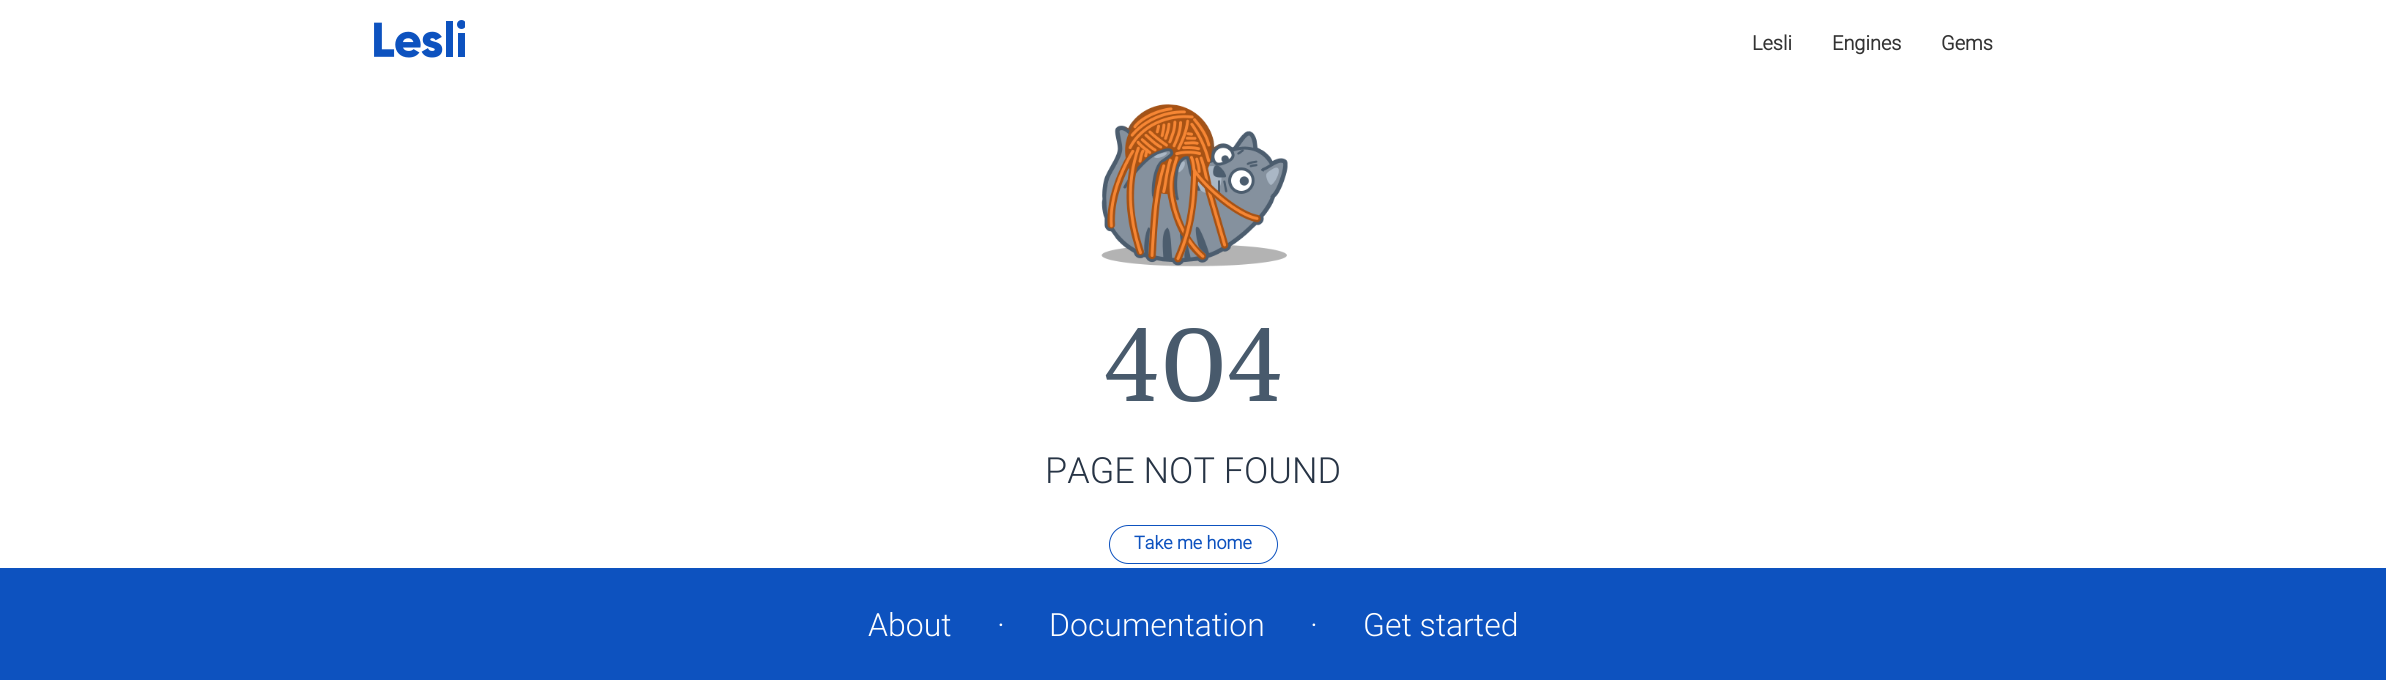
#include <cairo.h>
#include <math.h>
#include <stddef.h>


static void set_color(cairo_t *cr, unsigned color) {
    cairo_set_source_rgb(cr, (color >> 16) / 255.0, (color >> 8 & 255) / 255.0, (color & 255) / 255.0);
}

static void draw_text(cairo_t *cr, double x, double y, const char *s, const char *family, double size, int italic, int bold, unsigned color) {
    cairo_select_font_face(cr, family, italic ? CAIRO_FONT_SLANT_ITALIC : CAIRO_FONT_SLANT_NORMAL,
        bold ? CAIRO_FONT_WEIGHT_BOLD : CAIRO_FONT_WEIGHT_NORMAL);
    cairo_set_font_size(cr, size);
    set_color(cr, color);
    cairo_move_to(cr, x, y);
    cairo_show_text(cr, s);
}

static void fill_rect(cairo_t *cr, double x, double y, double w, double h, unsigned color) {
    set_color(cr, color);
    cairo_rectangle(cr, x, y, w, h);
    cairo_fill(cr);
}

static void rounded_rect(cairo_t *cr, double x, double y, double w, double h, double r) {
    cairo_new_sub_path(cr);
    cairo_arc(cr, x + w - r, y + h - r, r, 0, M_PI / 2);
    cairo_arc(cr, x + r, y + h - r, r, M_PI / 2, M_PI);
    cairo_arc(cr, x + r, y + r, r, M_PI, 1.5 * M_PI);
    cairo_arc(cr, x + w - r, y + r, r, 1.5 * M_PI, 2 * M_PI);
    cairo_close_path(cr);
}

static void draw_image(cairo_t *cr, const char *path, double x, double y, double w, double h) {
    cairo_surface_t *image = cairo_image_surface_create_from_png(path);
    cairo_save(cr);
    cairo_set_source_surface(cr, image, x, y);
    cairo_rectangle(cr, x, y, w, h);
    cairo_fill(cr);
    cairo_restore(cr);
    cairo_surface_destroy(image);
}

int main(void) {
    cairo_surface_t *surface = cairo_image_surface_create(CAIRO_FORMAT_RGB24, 2386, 680);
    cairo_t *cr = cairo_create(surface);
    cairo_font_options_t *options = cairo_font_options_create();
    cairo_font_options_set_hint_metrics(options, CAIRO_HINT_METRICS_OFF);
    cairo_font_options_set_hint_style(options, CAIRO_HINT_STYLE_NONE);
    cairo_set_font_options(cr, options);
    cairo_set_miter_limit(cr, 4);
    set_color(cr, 0xFFFFFF);
    cairo_paint(cr);
    draw_image(cr, "assets/img1.png", 374, 20, 91, 38);
    draw_text(cr, 1752, 50, "Lesli", "Roboto", 20, 0, 1, 0x333333);
    draw_text(cr, 1832, 50, "Engines", "Roboto", 20, 0, 1, 0x333333);
    draw_text(cr, 1941, 50, "Gems", "Roboto", 20, 0, 1, 0x333333);
    draw_image(cr, "assets/img2.png", 1101, 104, 187, 163);
    draw_text(cr, 1104, 401, "404", "Domine", 100, 0, 0, 0x485A6C);
    draw_text(cr, 1045, 483, "PAGE NOT FOUND", "Roboto Light", 36, 0, 0, 0x273445);
    rounded_rect(cr, 1109.5, 525.5, 168, 38, 19);
    set_color(cr, 0x0D52BF);
    cairo_set_line_width(cr, 1);
    cairo_stroke(cr);
    draw_text(cr, 1134, 549, "Take me home", "Roboto", 18, 0, 1, 0x0D52BF);
    fill_rect(cr, 0, 568, 2386, 112, 0x0D52BF);
    draw_text(cr, 868, 636, "About", "Roboto Light", 32, 0, 0, 0xFFFFFF);
    draw_text(cr, 997, 636, "·", "Roboto Light", 32, 0, 0, 0xFFFFFF);
    draw_text(cr, 1049, 636, "Documentation", "Roboto Light", 32, 0, 0, 0xFFFFFF);
    draw_text(cr, 1310, 636, "·", "Roboto Light", 32, 0, 0, 0xFFFFFF);
    draw_text(cr, 1363, 636, "Get started", "Roboto Light", 32, 0, 0, 0xFFFFFF);
    cairo_surface_write_to_png(surface, "output.png");
    cairo_font_options_destroy(options);
    cairo_destroy(cr);
    cairo_surface_destroy(surface);
    return 0;
}
